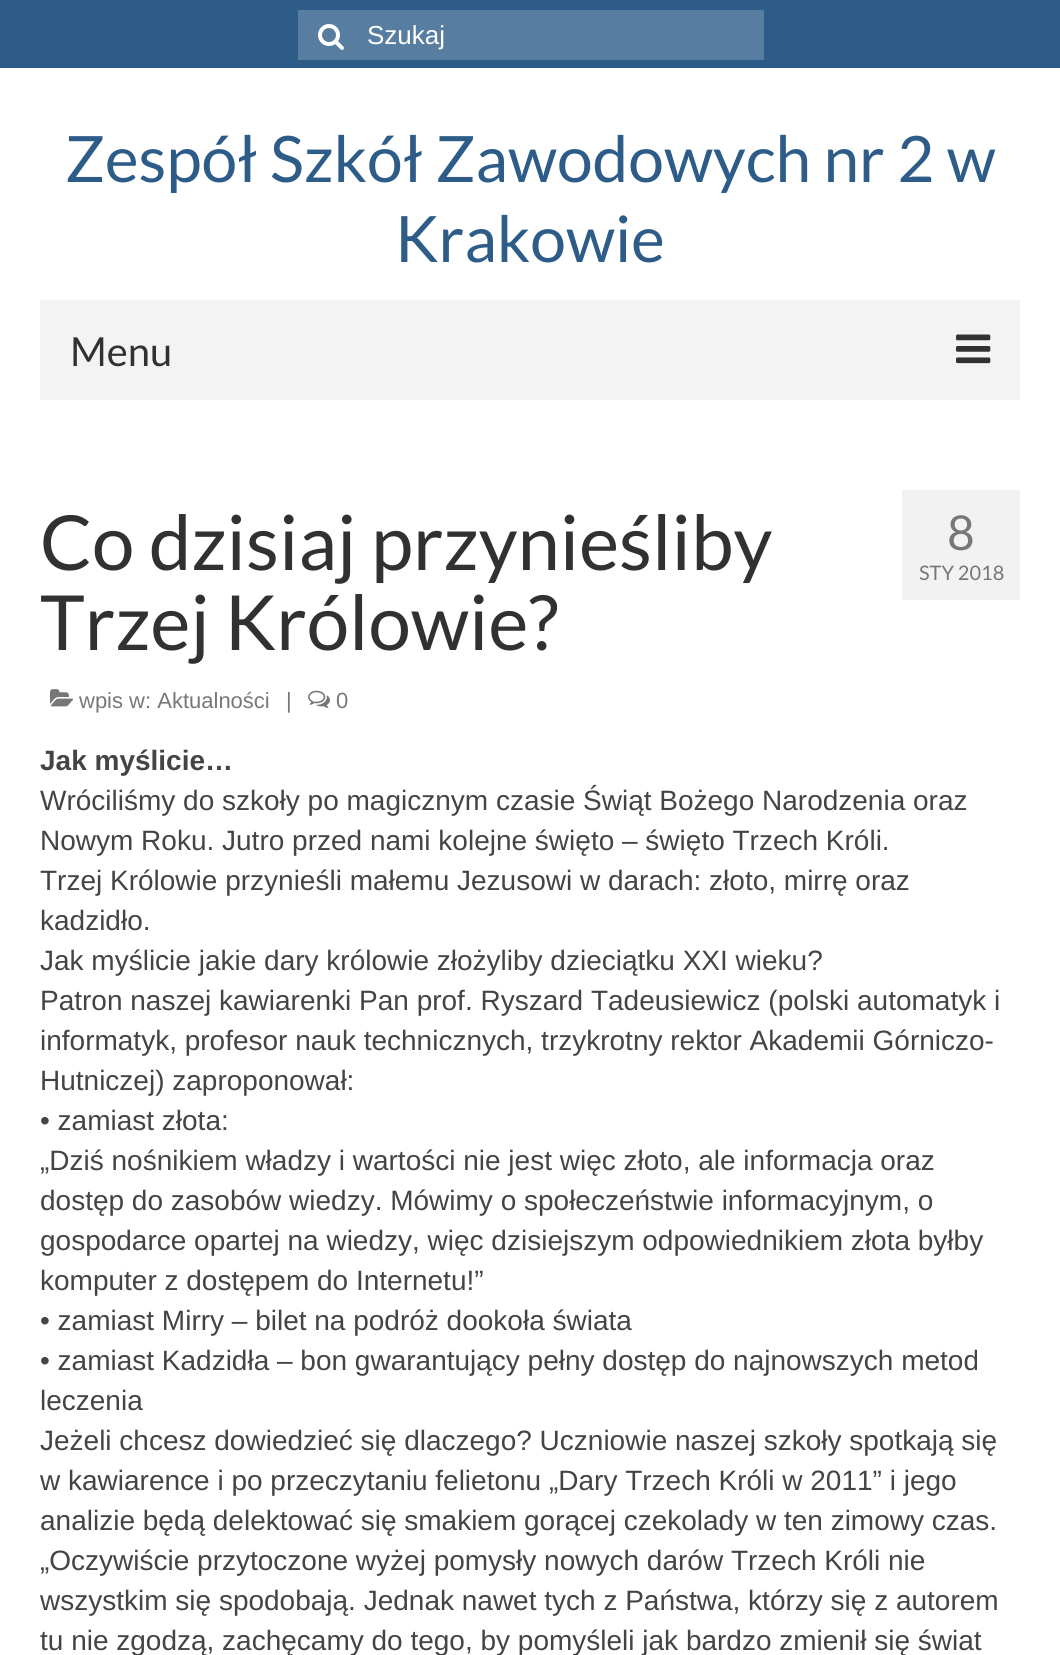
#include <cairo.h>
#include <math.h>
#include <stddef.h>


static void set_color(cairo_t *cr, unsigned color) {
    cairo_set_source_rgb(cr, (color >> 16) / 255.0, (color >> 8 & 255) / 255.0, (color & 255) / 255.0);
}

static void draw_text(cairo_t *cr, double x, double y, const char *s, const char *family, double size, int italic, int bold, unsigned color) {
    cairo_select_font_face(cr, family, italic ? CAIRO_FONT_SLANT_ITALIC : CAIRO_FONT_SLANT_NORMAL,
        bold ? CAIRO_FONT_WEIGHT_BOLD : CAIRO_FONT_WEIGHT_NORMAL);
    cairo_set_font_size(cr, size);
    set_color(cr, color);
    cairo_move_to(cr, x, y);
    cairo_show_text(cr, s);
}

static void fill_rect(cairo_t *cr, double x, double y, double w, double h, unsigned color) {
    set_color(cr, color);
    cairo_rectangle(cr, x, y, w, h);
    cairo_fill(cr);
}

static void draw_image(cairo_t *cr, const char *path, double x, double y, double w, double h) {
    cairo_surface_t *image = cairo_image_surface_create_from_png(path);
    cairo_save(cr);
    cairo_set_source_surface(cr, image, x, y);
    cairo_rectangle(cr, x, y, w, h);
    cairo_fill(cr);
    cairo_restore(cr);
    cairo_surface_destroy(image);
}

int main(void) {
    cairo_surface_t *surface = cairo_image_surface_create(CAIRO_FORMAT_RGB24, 1060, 1655);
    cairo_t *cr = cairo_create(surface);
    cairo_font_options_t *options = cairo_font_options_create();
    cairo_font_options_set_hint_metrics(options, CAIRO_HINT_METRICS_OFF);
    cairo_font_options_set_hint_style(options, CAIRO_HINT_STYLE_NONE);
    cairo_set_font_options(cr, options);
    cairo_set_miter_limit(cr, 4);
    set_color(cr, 0xFFFFFF);
    cairo_paint(cr);
    fill_rect(cr, 0, 0, 1060, 68, 0x2D5C88);
    fill_rect(cr, 298, 10, 466, 50, 0x577DA0);
    draw_image(cr, "assets/img1.png", 318, 24, 26, 26);
    draw_text(cr, 367, 44, "Szukaj", "Liberation Sans", 26, 0, 0, 0xFFFFFF);
    draw_text(cr, 65, 182, "Zespół Szkół Zawodowych nr 2 w", "Lato", 64, 0, 0, 0x2D5C88);
    draw_text(cr, 395, 262, "Krakowie", "Lato", 64, 0, 0, 0x2D5C88);
    fill_rect(cr, 40, 300, 980, 100, 0xF3F3F3);
    draw_text(cr, 70, 366, "Menu", "Lato", 40, 0, 0, 0x313131);
    draw_image(cr, "assets/img2.png", 956, 334, 35, 30);
    draw_text(cr, 40, 570, "Co dzisiaj przynieśliby", "Lato", 76, 0, 0, 0x313131);
    draw_text(cr, 40, 650, "Trzej Królowie?", "Lato", 76, 0, 0, 0x313131);
    draw_image(cr, "assets/img3.png", 50, 689, 23, 18);
    draw_text(cr, 79, 708, "wpis w: Aktualności", "Liberation Sans", 22, 0, 0, 0x777777);
    draw_text(cr, 286, 708, "|", "Liberation Sans", 22, 0, 0, 0x777777);
    draw_image(cr, "assets/img4.png", 308, 690, 22, 18);
    draw_text(cr, 336, 708, "0", "Liberation Sans", 22, 0, 0, 0x777777);
    fill_rect(cr, 902, 490, 118, 110, 0xF2F2F2);
    draw_text(cr, 947, 550, "8", "Lato", 48, 0, 0, 0x777777);
    draw_text(cr, 919, 580, "STY 2018", "Lato", 20, 0, 0, 0x777777);
    draw_text(cr, 40, 770, "Jak myślicie…", "Liberation Sans", 28, 0, 1, 0x444444);
    draw_text(cr, 40, 810, "Wróciliśmy do szkoły po magicznym czasie Świąt Bożego Narodzenia oraz", "Liberation Sans", 28, 0, 0, 0x444444);
    draw_text(cr, 40, 850, "Nowym Roku. Jutro przed nami kolejne święto – święto Trzech Króli.", "Liberation Sans", 28, 0, 0, 0x444444);
    draw_text(cr, 40, 890, "Trzej Królowie przynieśli małemu Jezusowi w darach: złoto, mirrę oraz", "Liberation Sans", 28, 0, 0, 0x444444);
    draw_text(cr, 40, 930, "kadzidło.", "Liberation Sans", 28, 0, 0, 0x444444);
    draw_text(cr, 40, 970, "Jak myślicie jakie dary królowie złożyliby dzieciątku XXI wieku?", "Liberation Sans", 28, 0, 0, 0x444444);
    draw_text(cr, 40, 1010, "Patron naszej kawiarenki Pan prof. Ryszard Tadeusiewicz (polski automatyk i", "Liberation Sans", 28, 0, 0, 0x444444);
    draw_text(cr, 40, 1050, "informatyk, profesor nauk technicznych, trzykrotny rektor Akademii Górniczo-", "Liberation Sans", 28, 0, 0, 0x444444);
    draw_text(cr, 40, 1090, "Hutniczej) zaproponował:", "Liberation Sans", 28, 0, 0, 0x444444);
    draw_text(cr, 40, 1130, "• zamiast złota:", "Liberation Sans", 28, 0, 0, 0x444444);
    draw_text(cr, 40, 1170, "„Dziś nośnikiem władzy i wartości nie jest więc złoto, ale informacja oraz", "Liberation Sans", 28, 0, 0, 0x444444);
    draw_text(cr, 40, 1210, "dostęp do zasobów wiedzy. Mówimy o społeczeństwie informacyjnym, o", "Liberation Sans", 28, 0, 0, 0x444444);
    draw_text(cr, 40, 1250, "gospodarce opartej na wiedzy, więc dzisiejszym odpowiednikiem złota byłby", "Liberation Sans", 28, 0, 0, 0x444444);
    draw_text(cr, 40, 1290, "komputer z dostępem do Internetu!”", "Liberation Sans", 28, 0, 0, 0x444444);
    draw_text(cr, 40, 1330, "• zamiast Mirry – bilet na podróż dookoła świata", "Liberation Sans", 28, 0, 0, 0x444444);
    draw_text(cr, 40, 1370, "• zamiast Kadzidła – bon gwarantujący pełny dostęp do najnowszych metod", "Liberation Sans", 28, 0, 0, 0x444444);
    draw_text(cr, 40, 1410, "leczenia", "Liberation Sans", 28, 0, 0, 0x444444);
    draw_text(cr, 40, 1450, "Jeżeli chcesz dowiedzieć się dlaczego? Uczniowie naszej szkoły spotkają się", "Liberation Sans", 28, 0, 0, 0x444444);
    draw_text(cr, 40, 1490, "w kawiarence i po przeczytaniu felietonu „Dary Trzech Króli w 2011” i jego", "Liberation Sans", 28, 0, 0, 0x444444);
    draw_text(cr, 40, 1530, "analizie będą delektować się smakiem gorącej czekolady w ten zimowy czas.", "Liberation Sans", 28, 0, 0, 0x444444);
    draw_text(cr, 40, 1570, "„Oczywiście przytoczone wyżej pomysły nowych darów Trzech Króli nie", "Liberation Sans", 28, 0, 0, 0x444444);
    draw_text(cr, 40, 1610, "wszystkim się spodobają. Jednak nawet tych z Państwa, którzy się z autorem", "Liberation Sans", 28, 0, 0, 0x444444);
    draw_text(cr, 40, 1650, "tu nie zgodzą, zachęcamy do tego, by pomyśleli jak bardzo zmienił się świat", "Liberation Sans", 28, 0, 0, 0x444444);
    cairo_surface_write_to_png(surface, "output.png");
    cairo_font_options_destroy(options);
    cairo_destroy(cr);
    cairo_surface_destroy(surface);
    return 0;
}
